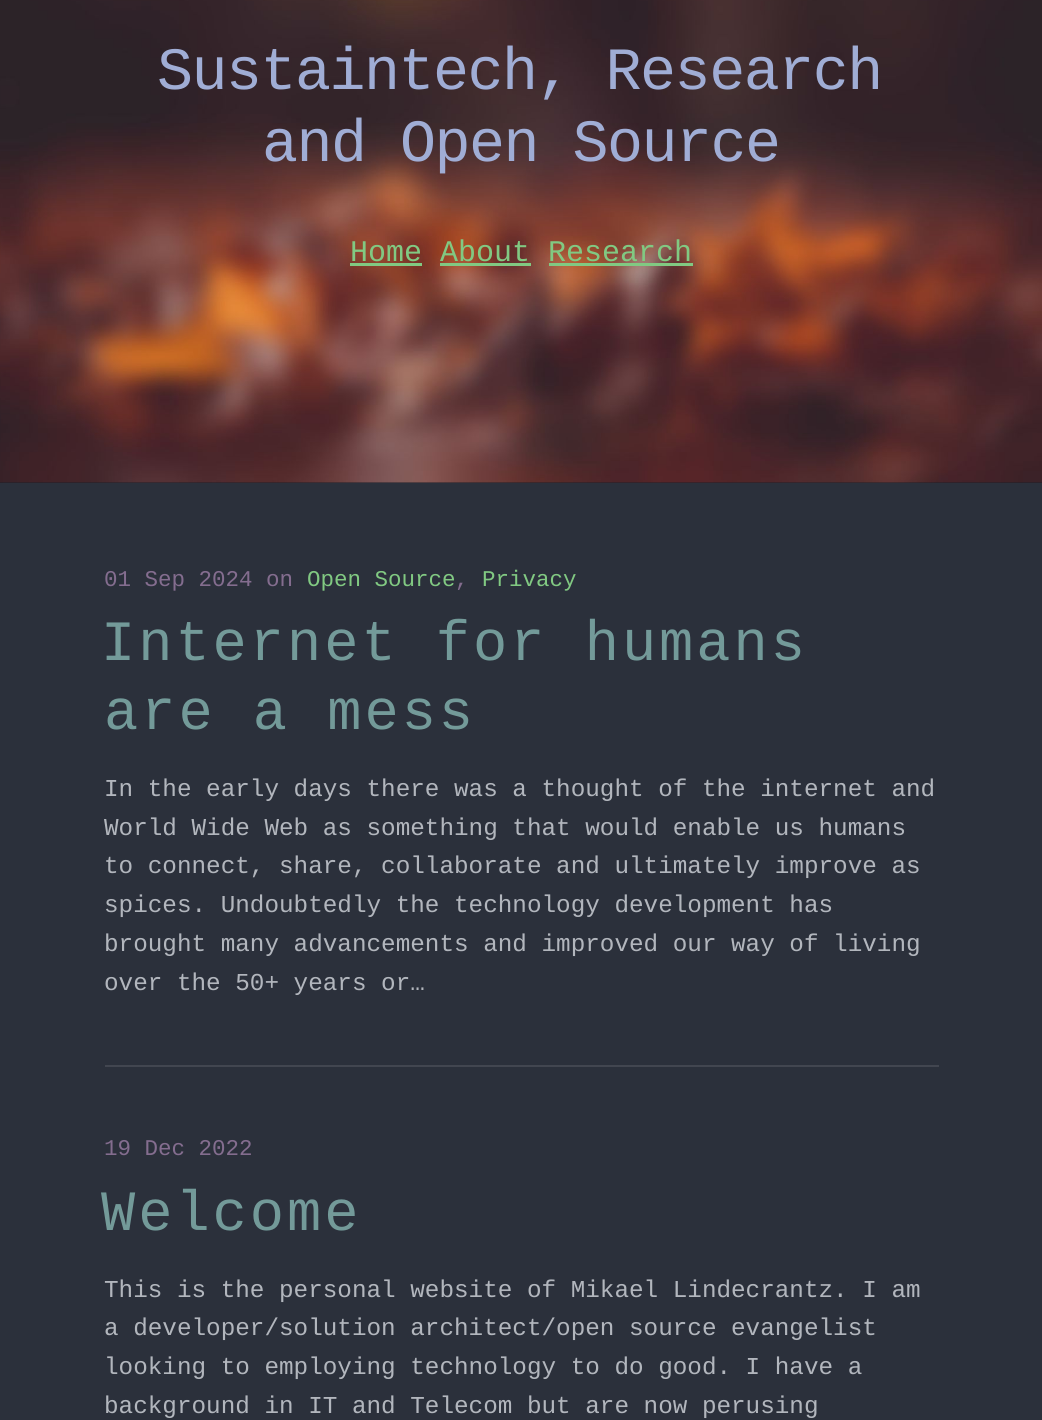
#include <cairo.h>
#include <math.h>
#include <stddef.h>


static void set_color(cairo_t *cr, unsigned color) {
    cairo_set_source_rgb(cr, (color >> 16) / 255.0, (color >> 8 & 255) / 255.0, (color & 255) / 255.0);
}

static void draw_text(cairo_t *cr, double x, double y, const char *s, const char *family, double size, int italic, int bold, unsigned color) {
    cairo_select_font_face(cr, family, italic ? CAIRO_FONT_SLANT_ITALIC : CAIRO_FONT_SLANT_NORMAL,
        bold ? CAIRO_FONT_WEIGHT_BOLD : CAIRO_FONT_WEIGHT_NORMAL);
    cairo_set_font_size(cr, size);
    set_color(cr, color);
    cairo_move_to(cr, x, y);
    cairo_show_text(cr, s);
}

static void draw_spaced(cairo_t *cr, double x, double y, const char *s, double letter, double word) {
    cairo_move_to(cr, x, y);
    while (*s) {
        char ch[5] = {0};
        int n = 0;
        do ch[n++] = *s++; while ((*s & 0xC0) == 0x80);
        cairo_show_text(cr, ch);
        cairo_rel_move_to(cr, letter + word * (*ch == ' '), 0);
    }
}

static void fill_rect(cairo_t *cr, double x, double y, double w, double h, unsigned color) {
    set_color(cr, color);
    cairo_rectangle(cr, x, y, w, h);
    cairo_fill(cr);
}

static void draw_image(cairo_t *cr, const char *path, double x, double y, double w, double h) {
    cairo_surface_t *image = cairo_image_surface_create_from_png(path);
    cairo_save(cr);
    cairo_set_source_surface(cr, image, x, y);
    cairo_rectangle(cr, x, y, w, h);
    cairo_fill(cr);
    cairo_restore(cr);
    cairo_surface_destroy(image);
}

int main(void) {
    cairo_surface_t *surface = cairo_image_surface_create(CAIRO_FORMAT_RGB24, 1042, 1420);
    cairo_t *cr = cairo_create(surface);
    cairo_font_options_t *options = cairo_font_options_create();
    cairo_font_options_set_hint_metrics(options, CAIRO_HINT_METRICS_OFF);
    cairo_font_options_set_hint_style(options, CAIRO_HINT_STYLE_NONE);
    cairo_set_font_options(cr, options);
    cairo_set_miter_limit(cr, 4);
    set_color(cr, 0x2B303B);
    cairo_paint(cr);
    fill_rect(cr, 0, 482, 1042, 1, 0x1C212B);
    draw_image(cr, "assets/img1.png", 0, 0, 1042, 483);
    cairo_select_font_face(cr, "Liberation Mono", CAIRO_FONT_SLANT_NORMAL, CAIRO_FONT_WEIGHT_NORMAL);
    cairo_set_font_size(cr, 60);
    set_color(cr, 0xA0ADD5);
    draw_spaced(cr, 157, 89, "Sustaintech, Research", -1.5, 0);
    draw_spaced(cr, 262, 161, "and Open Source", -1.5, 0);
    draw_text(cr, 350, 261, "Home About Research", "Liberation Mono", 30, 0, 0, 0x81C982);
    fill_rect(cr, 350, 263, 72, 3, 0x81C982);
    fill_rect(cr, 440, 263, 91, 3, 0x81C982);
    fill_rect(cr, 549, 263, 144, 3, 0x81C982);
    fill_rect(cr, 105, 1065, 834, 2, 0x424650);
    draw_text(cr, 104, 586, "01 Sep 2024 on", "Liberation Mono", 22.5, 0, 0, 0x846D8F);
    draw_text(cr, 307, 586, "Open Source", "Liberation Mono", 22.5, 0, 0, 0x81C982);
    draw_text(cr, 455, 586, ",", "Liberation Mono", 22.5, 0, 0, 0x846D8F);
    draw_text(cr, 482, 586, "Privacy", "Liberation Mono", 22.5, 0, 0, 0x81C982);
    cairo_set_font_size(cr, 57);
    set_color(cr, 0x739A99);
    draw_spaced(cr, 101, 660, "Internet for humans", 3, 0);
    draw_spaced(cr, 104, 729, "are a mess", 3, 0);
    draw_text(cr, 104, 796, "In the early days there was a thought of the internet and", "Liberation Mono", 24.3, 0, 0, 0xB2B6BD);
    draw_text(cr, 104, 835, "World Wide Web as something that would enable us humans", "Liberation Mono", 24.3, 0, 0, 0xB2B6BD);
    draw_text(cr, 104, 873, "to connect, share, collaborate and ultimately improve as", "Liberation Mono", 24.3, 0, 0, 0xB2B6BD);
    draw_text(cr, 104, 912, "spices. Undoubtedly the technology development has", "Liberation Mono", 24.3, 0, 0, 0xB2B6BD);
    draw_text(cr, 104, 951, "brought many advancements and improved our way of living", "Liberation Mono", 24.3, 0, 0, 0xB2B6BD);
    draw_text(cr, 104, 990, "over the 50+ years or…", "Liberation Mono", 24.3, 0, 0, 0xB2B6BD);
    draw_text(cr, 104, 1155, "19 Dec 2022", "Liberation Mono", 22.5, 0, 0, 0x846D8F);
    cairo_set_font_size(cr, 57);
    set_color(cr, 0x739A99);
    draw_spaced(cr, 101, 1230, "Welcome", 3, 0);
    draw_text(cr, 104, 1297, "This is the personal website of Mikael Lindecrantz. I am", "Liberation Mono", 24.3, 0, 0, 0xB2B6BD);
    draw_text(cr, 104, 1335, "a developer/solution architect/open source evangelist", "Liberation Mono", 24.3, 0, 0, 0xB2B6BD);
    draw_text(cr, 104, 1374, "looking to employing technology to do good. I have a", "Liberation Mono", 24.3, 0, 0, 0xB2B6BD);
    draw_text(cr, 104, 1413, "background in IT and Telecom but are now perusing", "Liberation Mono", 24.3, 0, 0, 0xB2B6BD);
    cairo_surface_write_to_png(surface, "output.png");
    cairo_font_options_destroy(options);
    cairo_destroy(cr);
    cairo_surface_destroy(surface);
    return 0;
}
